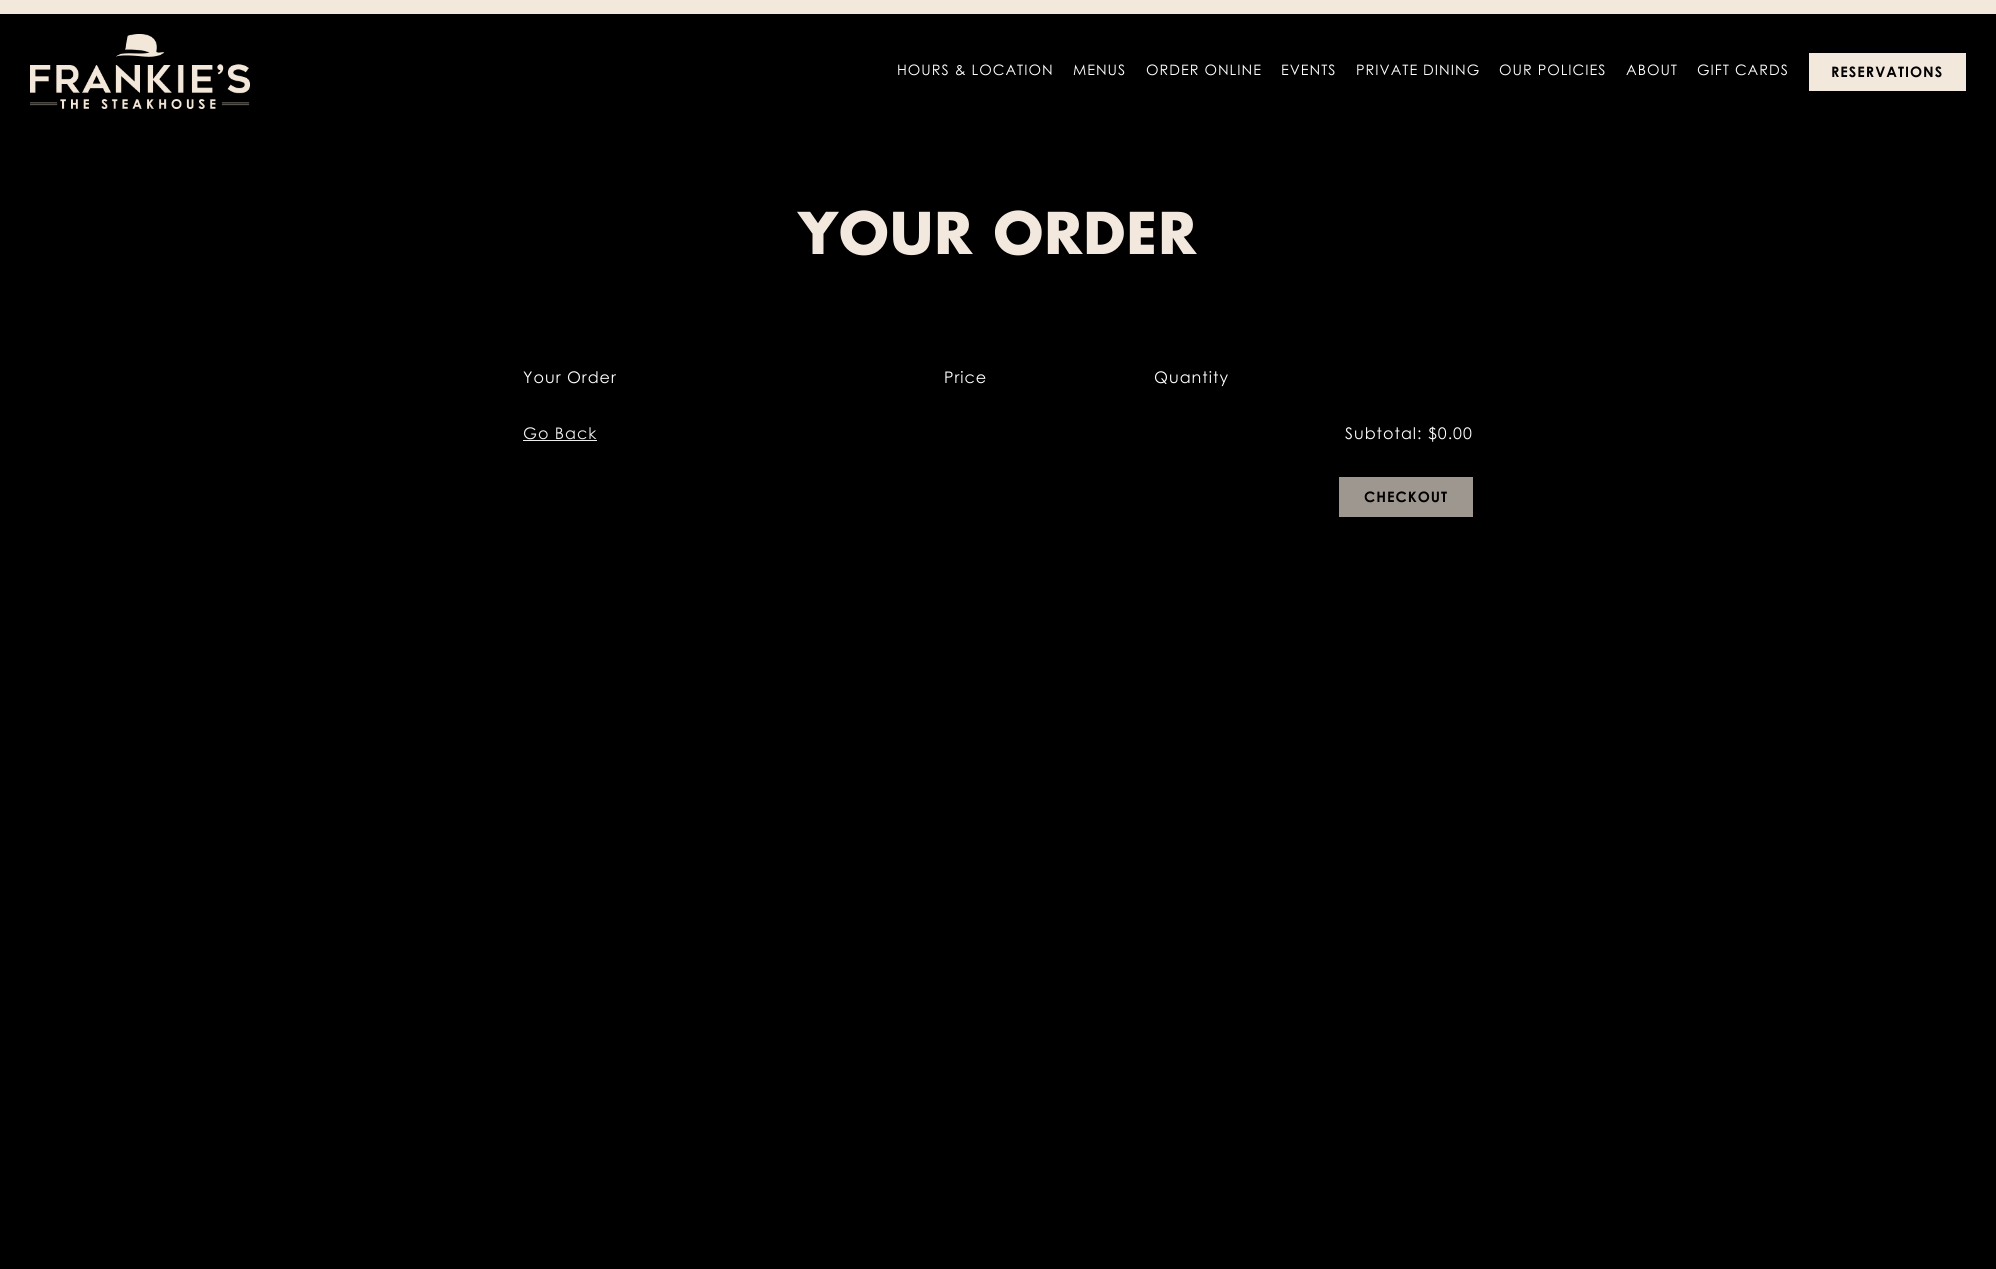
#include <cairo.h>
#include <math.h>
#include <stddef.h>


static void set_color(cairo_t *cr, unsigned color) {
    cairo_set_source_rgb(cr, (color >> 16) / 255.0, (color >> 8 & 255) / 255.0, (color & 255) / 255.0);
}

static void draw_spaced(cairo_t *cr, double x, double y, const char *s, double letter, double word) {
    cairo_move_to(cr, x, y);
    while (*s) {
        char ch[5] = {0};
        int n = 0;
        do ch[n++] = *s++; while ((*s & 0xC0) == 0x80);
        cairo_show_text(cr, ch);
        cairo_rel_move_to(cr, letter + word * (*ch == ' '), 0);
    }
}

static void fill_rect(cairo_t *cr, double x, double y, double w, double h, unsigned color) {
    set_color(cr, color);
    cairo_rectangle(cr, x, y, w, h);
    cairo_fill(cr);
}

static void draw_image(cairo_t *cr, const char *path, double x, double y, double w, double h) {
    cairo_surface_t *image = cairo_image_surface_create_from_png(path);
    cairo_save(cr);
    cairo_set_source_surface(cr, image, x, y);
    cairo_rectangle(cr, x, y, w, h);
    cairo_fill(cr);
    cairo_restore(cr);
    cairo_surface_destroy(image);
}

int main(void) {
    cairo_surface_t *surface = cairo_image_surface_create(CAIRO_FORMAT_RGB24, 1996, 1269);
    cairo_t *cr = cairo_create(surface);
    cairo_font_options_t *options = cairo_font_options_create();
    cairo_font_options_set_hint_metrics(options, CAIRO_HINT_METRICS_OFF);
    cairo_font_options_set_hint_style(options, CAIRO_HINT_STYLE_NONE);
    cairo_set_font_options(cr, options);
    cairo_set_miter_limit(cr, 4);
    set_color(cr, 0x000000);
    cairo_paint(cr);
    fill_rect(cr, 0, 0, 1996, 14, 0xF3E8DC);
    draw_image(cr, "assets/img1.png", 30, 34, 220, 75);
    cairo_select_font_face(cr, "Century Gothic", CAIRO_FONT_SLANT_NORMAL, CAIRO_FONT_WEIGHT_NORMAL);
    cairo_set_font_size(cr, 14.4);
    set_color(cr, 0xFFFFFF);
    draw_spaced(cr, 897, 75, "HOURS & LOCATION", 1, 0);
    draw_spaced(cr, 1073, 75, "MENUS", 1, 0);
    draw_spaced(cr, 1146, 75, "ORDER ONLINE", 1, 0);
    draw_spaced(cr, 1281, 75, "EVENTS", 1, 0);
    draw_spaced(cr, 1356, 75, "PRIVATE DINING", 1, 0);
    draw_spaced(cr, 1499, 75, "OUR POLICIES", 1, 0);
    draw_spaced(cr, 1626, 75, "ABOUT", 1, 0);
    draw_spaced(cr, 1697, 75, "GIFT CARDS", 1, 0);
    fill_rect(cr, 1809, 53, 157, 38, 0xF3E8DC);
    cairo_select_font_face(cr, "Century Gothic", CAIRO_FONT_SLANT_NORMAL, CAIRO_FONT_WEIGHT_BOLD);
    set_color(cr, 0x000000);
    draw_spaced(cr, 1831, 77, "RESERVATIONS", 1, 0);
    cairo_select_font_face(cr, "Futura", CAIRO_FONT_SLANT_NORMAL, CAIRO_FONT_WEIGHT_BOLD);
    cairo_set_font_size(cr, 56);
    set_color(cr, 0xF3E8DD);
    draw_spaced(cr, 798, 254, "YOUR ORDER", 1, 0);
    cairo_select_font_face(cr, "Century Gothic", CAIRO_FONT_SLANT_NORMAL, CAIRO_FONT_WEIGHT_NORMAL);
    cairo_set_font_size(cr, 16);
    set_color(cr, 0xFFFFFF);
    draw_spaced(cr, 523, 383, "Your Order", 1, 0);
    draw_spaced(cr, 944, 383, "Price", 1, 0);
    draw_spaced(cr, 1154, 383, "Quantity", 1, 0);
    set_color(cr, 0xEEEEEE);
    draw_spaced(cr, 523, 439, "Go Back", 1, 0);
    fill_rect(cr, 523, 440, 74, 1, 0xEEEEEE);
    set_color(cr, 0xFFFFFF);
    draw_spaced(cr, 1345, 439, "Subtotal: $0.00", 1, 0);
    fill_rect(cr, 1339, 477, 134, 40, 0x9E978F);
    cairo_select_font_face(cr, "Century Gothic", CAIRO_FONT_SLANT_NORMAL, CAIRO_FONT_WEIGHT_BOLD);
    cairo_set_font_size(cr, 14.4);
    set_color(cr, 0x000000);
    draw_spaced(cr, 1364, 502, "CHECKOUT", 1, 0);
    cairo_surface_write_to_png(surface, "output.png");
    cairo_font_options_destroy(options);
    cairo_destroy(cr);
    cairo_surface_destroy(surface);
    return 0;
}
